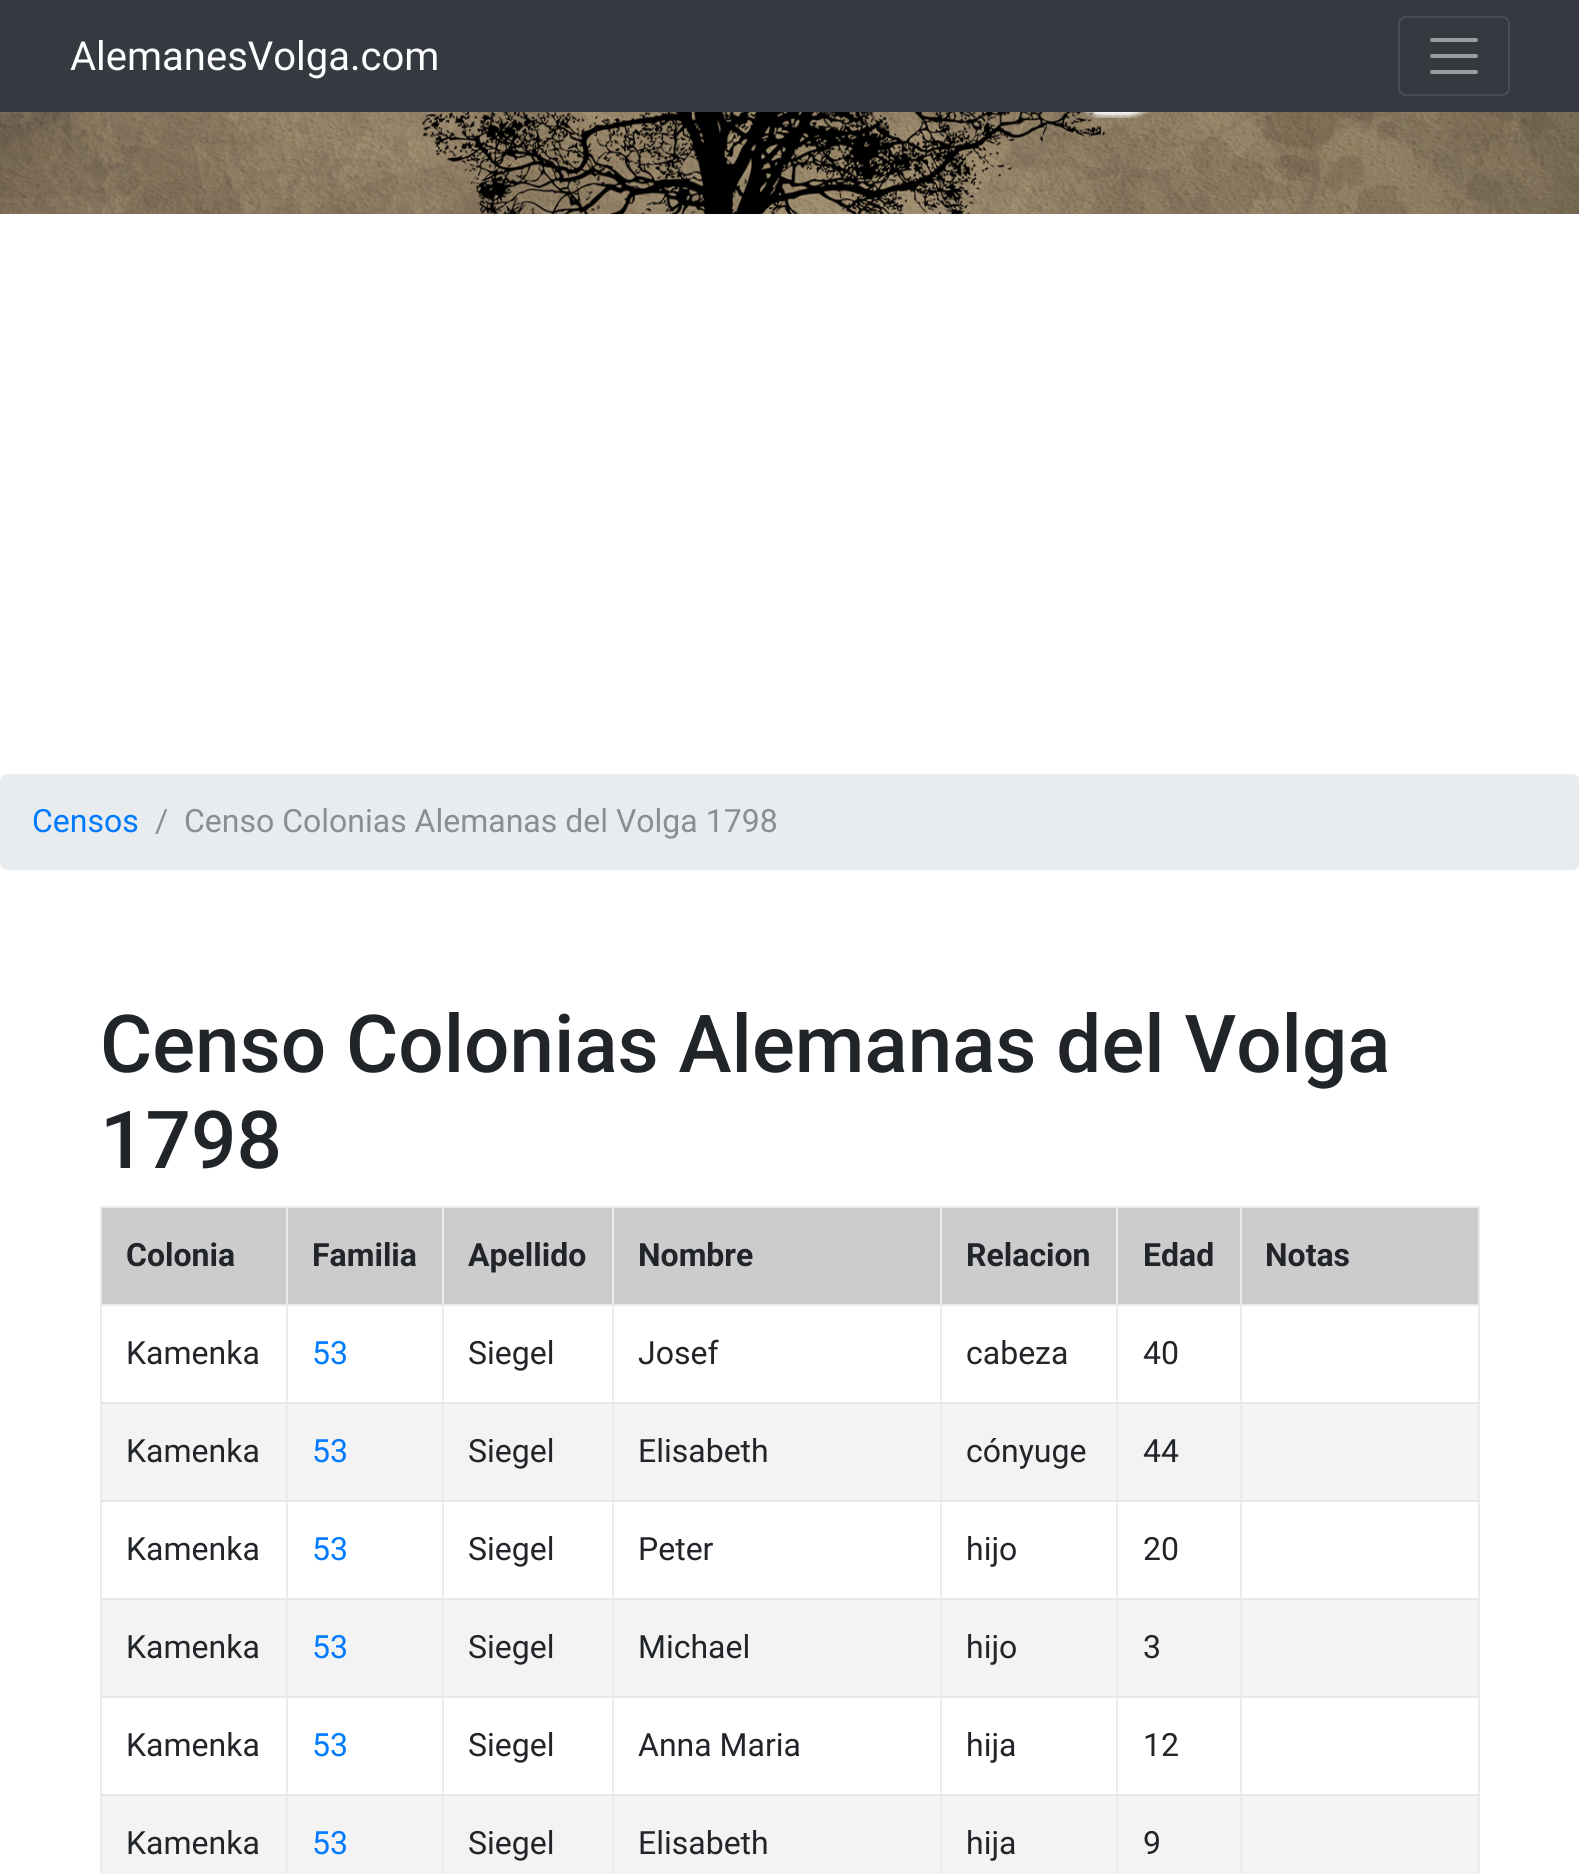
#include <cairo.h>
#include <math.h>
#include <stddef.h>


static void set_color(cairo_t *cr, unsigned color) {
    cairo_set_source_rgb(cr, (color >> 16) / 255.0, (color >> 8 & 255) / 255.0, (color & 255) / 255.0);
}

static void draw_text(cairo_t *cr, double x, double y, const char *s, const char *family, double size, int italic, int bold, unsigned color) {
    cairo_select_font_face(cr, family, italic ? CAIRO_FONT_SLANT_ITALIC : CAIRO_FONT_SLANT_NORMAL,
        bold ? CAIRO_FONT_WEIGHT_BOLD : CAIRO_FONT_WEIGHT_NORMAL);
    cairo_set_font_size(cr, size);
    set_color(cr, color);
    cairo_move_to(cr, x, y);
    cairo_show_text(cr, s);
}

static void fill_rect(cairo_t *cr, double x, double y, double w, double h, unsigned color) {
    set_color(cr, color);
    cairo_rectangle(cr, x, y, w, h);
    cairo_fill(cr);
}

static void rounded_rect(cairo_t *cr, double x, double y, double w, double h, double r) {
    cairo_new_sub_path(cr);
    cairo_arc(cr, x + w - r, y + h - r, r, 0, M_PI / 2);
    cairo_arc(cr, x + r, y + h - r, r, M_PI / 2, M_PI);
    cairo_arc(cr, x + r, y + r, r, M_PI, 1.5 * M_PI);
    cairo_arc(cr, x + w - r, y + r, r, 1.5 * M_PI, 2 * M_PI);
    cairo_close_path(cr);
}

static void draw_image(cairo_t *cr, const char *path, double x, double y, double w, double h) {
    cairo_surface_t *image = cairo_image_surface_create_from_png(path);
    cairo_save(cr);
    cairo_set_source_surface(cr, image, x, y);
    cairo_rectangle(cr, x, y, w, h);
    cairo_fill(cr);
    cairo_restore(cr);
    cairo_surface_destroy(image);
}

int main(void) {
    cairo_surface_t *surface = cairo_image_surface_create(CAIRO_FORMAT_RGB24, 1579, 1874);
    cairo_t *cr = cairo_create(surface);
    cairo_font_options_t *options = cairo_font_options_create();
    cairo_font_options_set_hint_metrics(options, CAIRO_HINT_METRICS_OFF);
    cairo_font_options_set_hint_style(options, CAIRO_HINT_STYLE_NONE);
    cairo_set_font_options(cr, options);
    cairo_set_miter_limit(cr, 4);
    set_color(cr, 0xFFFFFF);
    cairo_paint(cr);
    fill_rect(cr, 0, 0, 1579, 112, 0x343A40);
    draw_text(cr, 70, 70, "AlemanesVolga.com", "Roboto", 40, 0, 0, 0xFFFFFF);
    rounded_rect(cr, 1399, 17, 110, 78, 7);
    set_color(cr, 0x484E53);
    cairo_stroke(cr);
    cairo_new_path(cr);
    cairo_move_to(cr, 1432, 40);
    cairo_line_to(cr, 1476, 40);
    cairo_move_to(cr, 1432, 56);
    cairo_line_to(cr, 1476, 56);
    cairo_move_to(cr, 1432, 72);
    cairo_line_to(cr, 1476, 72);
    set_color(cr, 0x9A9DA0);
    cairo_set_line_width(cr, 4);
    cairo_set_line_cap(cr, CAIRO_LINE_CAP_ROUND);
    cairo_stroke(cr);
    draw_image(cr, "assets/img1.png", 0, 112, 1579, 102);
    draw_image(cr, "assets/img2.png", 1082, 112, 69, 6);
    set_color(cr, 0xE9ECEF);
    rounded_rect(cr, 0, 774, 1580, 96, 8);
    cairo_fill(cr);
    draw_text(cr, 32, 832, "Censos", "Roboto", 32, 0, 0, 0x007BFF);
    draw_text(cr, 155, 832, "/", "Roboto", 32, 0, 0, 0x868E96);
    draw_text(cr, 184, 832, "Censo Colonias Alemanas del Volga 1798", "Roboto", 32, 0, 0, 0x868E96);
    draw_text(cr, 100, 1072, "Censo Colonias Alemanas del Volga", "Roboto Medium", 80, 0, 0, 0x212529);
    draw_text(cr, 100, 1168, "1798", "Roboto Medium", 80, 0, 0, 0x212529);
    fill_rect(cr, 100, 1206, 1380, 2, 0xE9ECEF);
    fill_rect(cr, 1478, 1206, 2, 668, 0xE9ECEF);
    fill_rect(cr, 100, 1206, 2, 668, 0xE9ECEF);
    fill_rect(cr, 102, 1208, 184, 96, 0xCCCCCC);
    draw_text(cr, 126, 1266, "Colonia", "Roboto", 32, 0, 1, 0x212529);
    fill_rect(cr, 288, 1208, 154, 96, 0xCCCCCC);
    fill_rect(cr, 1240, 1304, 240, 2, 0xE9ECEF);
    fill_rect(cr, 102, 1404, 1376, 96, 0xF3F3F3);
    fill_rect(cr, 102, 1600, 1376, 96, 0xF3F3F3);
    fill_rect(cr, 102, 1796, 1376, 78, 0xF3F3F3);
    fill_rect(cr, 1240, 1794, 2, 80, 0xE9ECEF);
    fill_rect(cr, 1240, 1794, 240, 2, 0xE8E8E8);
    fill_rect(cr, 1240, 1696, 2, 100, 0xE9ECEF);
    fill_rect(cr, 1240, 1696, 240, 2, 0xE8E8E8);
    fill_rect(cr, 1240, 1598, 2, 100, 0xE9ECEF);
    fill_rect(cr, 1240, 1598, 240, 2, 0xE8E8E8);
    fill_rect(cr, 1240, 1500, 2, 100, 0xE9ECEF);
    fill_rect(cr, 1240, 1500, 240, 2, 0xE8E8E8);
    fill_rect(cr, 1240, 1402, 2, 100, 0xE9ECEF);
    fill_rect(cr, 1240, 1402, 240, 2, 0xE8E8E8);
    fill_rect(cr, 1240, 1304, 2, 100, 0xE9ECEF);
    fill_rect(cr, 1116, 1304, 126, 2, 0xE9ECEF);
    fill_rect(cr, 1116, 1794, 2, 80, 0xE9ECEF);
    fill_rect(cr, 1116, 1794, 126, 2, 0xE8E8E8);
    fill_rect(cr, 1116, 1696, 2, 100, 0xE9ECEF);
    fill_rect(cr, 1116, 1696, 126, 2, 0xE8E8E8);
    fill_rect(cr, 1116, 1598, 2, 100, 0xE9ECEF);
    fill_rect(cr, 1116, 1598, 126, 2, 0xE8E8E8);
    fill_rect(cr, 1116, 1500, 2, 100, 0xE9ECEF);
    fill_rect(cr, 1116, 1500, 126, 2, 0xE8E8E8);
    fill_rect(cr, 1116, 1402, 2, 100, 0xE9ECEF);
    fill_rect(cr, 1116, 1402, 126, 2, 0xE8E8E8);
    fill_rect(cr, 1116, 1304, 2, 100, 0xE9ECEF);
    fill_rect(cr, 940, 1304, 178, 2, 0xE9ECEF);
    fill_rect(cr, 940, 1794, 2, 80, 0xE9ECEF);
    fill_rect(cr, 940, 1794, 178, 2, 0xE8E8E8);
    fill_rect(cr, 940, 1696, 2, 100, 0xE9ECEF);
    fill_rect(cr, 940, 1696, 178, 2, 0xE8E8E8);
    fill_rect(cr, 940, 1598, 2, 100, 0xE9ECEF);
    fill_rect(cr, 940, 1598, 178, 2, 0xE8E8E8);
    fill_rect(cr, 940, 1500, 2, 100, 0xE9ECEF);
    fill_rect(cr, 940, 1500, 178, 2, 0xE8E8E8);
    fill_rect(cr, 940, 1402, 2, 100, 0xE9ECEF);
    fill_rect(cr, 940, 1402, 178, 2, 0xE8E8E8);
    fill_rect(cr, 940, 1304, 2, 100, 0xE9ECEF);
    fill_rect(cr, 612, 1304, 330, 2, 0xE9ECEF);
    fill_rect(cr, 612, 1794, 2, 80, 0xE9ECEF);
    fill_rect(cr, 612, 1794, 330, 2, 0xE8E8E8);
    fill_rect(cr, 612, 1696, 2, 100, 0xE9ECEF);
    fill_rect(cr, 612, 1696, 330, 2, 0xE8E8E8);
    fill_rect(cr, 612, 1598, 2, 100, 0xE9ECEF);
    fill_rect(cr, 612, 1598, 330, 2, 0xE8E8E8);
    fill_rect(cr, 612, 1500, 2, 100, 0xE9ECEF);
    fill_rect(cr, 612, 1500, 330, 2, 0xE8E8E8);
    fill_rect(cr, 612, 1402, 2, 100, 0xE9ECEF);
    fill_rect(cr, 612, 1402, 330, 2, 0xE8E8E8);
    fill_rect(cr, 612, 1304, 2, 100, 0xE9ECEF);
    fill_rect(cr, 442, 1304, 172, 2, 0xE9ECEF);
    fill_rect(cr, 442, 1794, 2, 80, 0xE9ECEF);
    fill_rect(cr, 442, 1794, 172, 2, 0xE8E8E8);
    fill_rect(cr, 442, 1696, 2, 100, 0xE9ECEF);
    fill_rect(cr, 442, 1696, 172, 2, 0xE8E8E8);
    fill_rect(cr, 442, 1598, 2, 100, 0xE9ECEF);
    fill_rect(cr, 442, 1598, 172, 2, 0xE8E8E8);
    fill_rect(cr, 442, 1500, 2, 100, 0xE9ECEF);
    fill_rect(cr, 442, 1500, 172, 2, 0xE8E8E8);
    fill_rect(cr, 442, 1402, 2, 100, 0xE9ECEF);
    fill_rect(cr, 442, 1402, 172, 2, 0xE8E8E8);
    fill_rect(cr, 442, 1304, 2, 100, 0xE9ECEF);
    fill_rect(cr, 286, 1304, 158, 2, 0xE9ECEF);
    fill_rect(cr, 286, 1794, 2, 80, 0xE9ECEF);
    fill_rect(cr, 286, 1794, 158, 2, 0xE8E8E8);
    fill_rect(cr, 286, 1696, 2, 100, 0xE9ECEF);
    fill_rect(cr, 286, 1696, 158, 2, 0xE8E8E8);
    fill_rect(cr, 286, 1598, 2, 100, 0xE9ECEF);
    fill_rect(cr, 286, 1598, 158, 2, 0xE8E8E8);
    fill_rect(cr, 286, 1500, 2, 100, 0xE9ECEF);
    fill_rect(cr, 286, 1500, 158, 2, 0xE8E8E8);
    fill_rect(cr, 286, 1402, 2, 100, 0xE9ECEF);
    fill_rect(cr, 286, 1402, 158, 2, 0xE8E8E8);
    fill_rect(cr, 286, 1304, 2, 100, 0xE9ECEF);
    fill_rect(cr, 100, 1304, 188, 2, 0xE9ECEF);
    fill_rect(cr, 286, 1206, 2, 100, 0xE9ECEF);
    draw_text(cr, 312, 1266, "Familia", "Roboto", 32, 0, 1, 0x212529);
    fill_rect(cr, 444, 1208, 168, 96, 0xCCCCCC);
    fill_rect(cr, 442, 1206, 2, 100, 0xE9ECEF);
    draw_text(cr, 468, 1266, "Apellido", "Roboto", 32, 0, 1, 0x212529);
    fill_rect(cr, 614, 1208, 326, 96, 0xCCCCCC);
    fill_rect(cr, 612, 1206, 2, 100, 0xE9ECEF);
    draw_text(cr, 638, 1266, "Nombre", "Roboto", 32, 0, 1, 0x212529);
    fill_rect(cr, 942, 1208, 174, 96, 0xCCCCCC);
    fill_rect(cr, 940, 1206, 2, 100, 0xE9ECEF);
    draw_text(cr, 966, 1266, "Relacion", "Roboto", 32, 0, 1, 0x212529);
    fill_rect(cr, 1118, 1208, 122, 96, 0xCCCCCC);
    fill_rect(cr, 1116, 1206, 2, 100, 0xE9ECEF);
    draw_text(cr, 1143, 1266, "Edad", "Roboto", 32, 0, 1, 0x212529);
    fill_rect(cr, 1242, 1208, 236, 96, 0xCCCCCC);
    fill_rect(cr, 1240, 1206, 2, 100, 0xE9ECEF);
    draw_text(cr, 1265, 1266, "Notas", "Roboto", 32, 0, 1, 0x212529);
    fill_rect(cr, 100, 1402, 188, 2, 0xE8E8E8);
    fill_rect(cr, 100, 1402, 2, 2, 0xE9ECEF);
    draw_text(cr, 126, 1364, "Kamenka", "Roboto", 32, 0, 0, 0x212529);
    draw_text(cr, 312, 1364, "53", "Roboto", 32, 0, 0, 0x007BFF);
    draw_text(cr, 468, 1364, "Siegel", "Roboto", 32, 0, 0, 0x212529);
    draw_text(cr, 638, 1364, "Josef", "Roboto", 32, 0, 0, 0x212529);
    draw_text(cr, 966, 1364, "cabeza", "Roboto", 32, 0, 0, 0x212529);
    draw_text(cr, 1143, 1364, "40", "Roboto", 32, 0, 0, 0x212529);
    fill_rect(cr, 100, 1500, 188, 2, 0xE8E8E8);
    fill_rect(cr, 100, 1500, 2, 2, 0xE9ECEF);
    draw_text(cr, 126, 1462, "Kamenka", "Roboto", 32, 0, 0, 0x212529);
    draw_text(cr, 312, 1462, "53", "Roboto", 32, 0, 0, 0x007BFF);
    draw_text(cr, 468, 1462, "Siegel", "Roboto", 32, 0, 0, 0x212529);
    draw_text(cr, 638, 1462, "Elisabeth", "Roboto", 32, 0, 0, 0x212529);
    draw_text(cr, 966, 1462, "cónyuge", "Roboto", 32, 0, 0, 0x212529);
    draw_text(cr, 1143, 1462, "44", "Roboto", 32, 0, 0, 0x212529);
    fill_rect(cr, 100, 1598, 188, 2, 0xE8E8E8);
    fill_rect(cr, 100, 1598, 2, 2, 0xE9ECEF);
    draw_text(cr, 126, 1560, "Kamenka", "Roboto", 32, 0, 0, 0x212529);
    draw_text(cr, 312, 1560, "53", "Roboto", 32, 0, 0, 0x007BFF);
    draw_text(cr, 468, 1560, "Siegel", "Roboto", 32, 0, 0, 0x212529);
    draw_text(cr, 638, 1560, "Peter", "Roboto", 32, 0, 0, 0x212529);
    draw_text(cr, 966, 1560, "hijo", "Roboto", 32, 0, 0, 0x212529);
    draw_text(cr, 1143, 1560, "20", "Roboto", 32, 0, 0, 0x212529);
    fill_rect(cr, 100, 1696, 188, 2, 0xE8E8E8);
    fill_rect(cr, 100, 1696, 2, 2, 0xE9ECEF);
    draw_text(cr, 126, 1658, "Kamenka", "Roboto", 32, 0, 0, 0x212529);
    draw_text(cr, 312, 1658, "53", "Roboto", 32, 0, 0, 0x007BFF);
    draw_text(cr, 468, 1658, "Siegel", "Roboto", 32, 0, 0, 0x212529);
    draw_text(cr, 638, 1658, "Michael", "Roboto", 32, 0, 0, 0x212529);
    draw_text(cr, 966, 1658, "hijo", "Roboto", 32, 0, 0, 0x212529);
    draw_text(cr, 1143, 1658, "3", "Roboto", 32, 0, 0, 0x212529);
    fill_rect(cr, 100, 1794, 188, 2, 0xE8E8E8);
    fill_rect(cr, 100, 1794, 2, 2, 0xE9ECEF);
    draw_text(cr, 126, 1756, "Kamenka", "Roboto", 32, 0, 0, 0x212529);
    draw_text(cr, 312, 1756, "53", "Roboto", 32, 0, 0, 0x007BFF);
    draw_text(cr, 468, 1756, "Siegel", "Roboto", 32, 0, 0, 0x212529);
    draw_text(cr, 638, 1756, "Anna Maria", "Roboto", 32, 0, 0, 0x212529);
    draw_text(cr, 966, 1756, "hija", "Roboto", 32, 0, 0, 0x212529);
    draw_text(cr, 1143, 1756, "12", "Roboto", 32, 0, 0, 0x212529);
    draw_text(cr, 126, 1854, "Kamenka", "Roboto", 32, 0, 0, 0x212529);
    draw_text(cr, 312, 1854, "53", "Roboto", 32, 0, 0, 0x007BFF);
    draw_text(cr, 468, 1854, "Siegel", "Roboto", 32, 0, 0, 0x212529);
    draw_text(cr, 638, 1854, "Elisabeth", "Roboto", 32, 0, 0, 0x212529);
    draw_text(cr, 966, 1854, "hija", "Roboto", 32, 0, 0, 0x212529);
    draw_text(cr, 1143, 1854, "9", "Roboto", 32, 0, 0, 0x212529);
    cairo_surface_write_to_png(surface, "output.png");
    cairo_font_options_destroy(options);
    cairo_destroy(cr);
    cairo_surface_destroy(surface);
    return 0;
}
